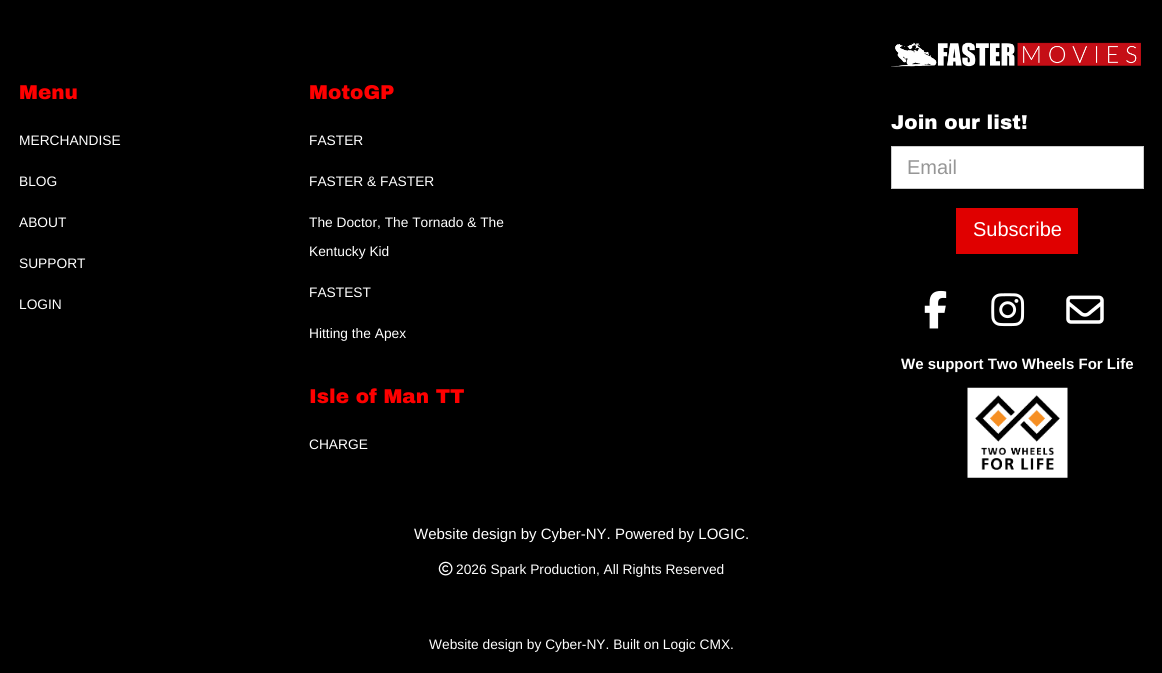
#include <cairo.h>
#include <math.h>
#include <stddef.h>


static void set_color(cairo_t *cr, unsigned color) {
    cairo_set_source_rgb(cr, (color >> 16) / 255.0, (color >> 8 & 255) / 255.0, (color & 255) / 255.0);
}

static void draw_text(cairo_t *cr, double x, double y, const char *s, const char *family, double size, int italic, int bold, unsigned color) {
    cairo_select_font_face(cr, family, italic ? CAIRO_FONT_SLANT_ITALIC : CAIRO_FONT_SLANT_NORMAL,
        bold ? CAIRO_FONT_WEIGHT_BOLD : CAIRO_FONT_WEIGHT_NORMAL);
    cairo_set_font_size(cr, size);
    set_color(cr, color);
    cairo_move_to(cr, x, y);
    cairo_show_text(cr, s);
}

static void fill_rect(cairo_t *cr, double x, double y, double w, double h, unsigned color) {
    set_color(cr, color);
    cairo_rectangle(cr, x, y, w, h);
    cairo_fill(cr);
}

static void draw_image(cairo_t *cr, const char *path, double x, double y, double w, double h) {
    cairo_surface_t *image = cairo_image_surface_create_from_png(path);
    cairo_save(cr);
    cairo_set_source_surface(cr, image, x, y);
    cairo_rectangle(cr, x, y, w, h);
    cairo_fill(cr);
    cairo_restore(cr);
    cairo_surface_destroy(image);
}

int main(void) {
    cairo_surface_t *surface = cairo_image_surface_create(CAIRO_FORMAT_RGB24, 1162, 673);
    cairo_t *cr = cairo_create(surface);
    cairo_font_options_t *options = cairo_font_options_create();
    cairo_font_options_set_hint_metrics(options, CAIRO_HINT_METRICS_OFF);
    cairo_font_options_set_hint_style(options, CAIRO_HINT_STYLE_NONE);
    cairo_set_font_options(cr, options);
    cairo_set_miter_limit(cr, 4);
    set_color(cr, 0x000000);
    cairo_paint(cr);
    draw_text(cr, 19, 99, "Menu", "Archivo Black Black", 20, 0, 0, 0xFF0000);
    draw_text(cr, 19, 145, "MERCHANDISE", "Liberation Sans", 13.75, 0, 0, 0xFFFFFF);
    draw_text(cr, 19, 186, "BLOG", "Liberation Sans", 13.75, 0, 0, 0xFFFFFF);
    draw_text(cr, 19, 227, "ABOUT", "Liberation Sans", 13.75, 0, 0, 0xFFFFFF);
    draw_text(cr, 19, 268, "SUPPORT", "Liberation Sans", 13.75, 0, 0, 0xFFFFFF);
    draw_text(cr, 19, 309, "LOGIN", "Liberation Sans", 13.75, 0, 0, 0xFFFFFF);
    draw_text(cr, 309, 99, "MotoGP", "Archivo Black Black", 20, 0, 0, 0xFF0000);
    draw_text(cr, 309, 145, "FASTER", "Liberation Sans", 13.75, 0, 0, 0xFFFFFF);
    draw_text(cr, 309, 186, "FASTER & FASTER", "Liberation Sans", 13.75, 0, 0, 0xFFFFFF);
    draw_text(cr, 309, 227, "The Doctor, The Tornado & The", "Liberation Sans", 13.75, 0, 0, 0xFFFFFF);
    draw_text(cr, 309, 256, "Kentucky Kid", "Liberation Sans", 13.75, 0, 0, 0xFFFFFF);
    draw_text(cr, 309, 297, "FASTEST", "Liberation Sans", 13.75, 0, 0, 0xFFFFFF);
    draw_text(cr, 309, 338, "Hitting the Apex", "Liberation Sans", 13.75, 0, 0, 0xFFFFFF);
    draw_text(cr, 309, 403, "Isle of Man TT", "Archivo Black Black", 20, 0, 0, 0xFF0000);
    draw_text(cr, 309, 449, "CHARGE", "Liberation Sans", 13.75, 0, 0, 0xFFFFFF);
    draw_image(cr, "assets/img1.png", 891, 42, 250, 25);
    draw_text(cr, 891, 129, "Join our list!", "Archivo Black Black", 20, 0, 0, 0xFFFFFF);
    cairo_rectangle(cr, 891.5, 146.5, 252, 42);
    cairo_fill_preserve(cr);
    set_color(cr, 0xCCCCCC);
    cairo_set_line_width(cr, 1);
    cairo_stroke(cr);
    draw_text(cr, 907, 174, "Email", "Liberation Sans", 20, 0, 0, 0x969696);
    fill_rect(cr, 956, 208, 122, 46, 0xE00000);
    draw_text(cr, 973, 236, "Subscribe", "Liberation Sans", 20, 0, 0, 0xFFFFFF);
    draw_image(cr, "assets/img2.png", 924, 290, 23, 39);
    draw_image(cr, "assets/img3.png", 991, 293, 34, 34);
    draw_image(cr, "assets/img4.png", 1066, 295, 38, 29);
    draw_text(cr, 901, 369, "We support Two Wheels For Life", "Liberation Sans", 15, 0, 1, 0xFFFFFF);
    draw_image(cr, "assets/img5.png", 967, 387, 101, 91);
    draw_text(cr, 414, 539, "Website design by Cyber-NY. Powered by LOGIC.", "Liberation Sans", 15, 0, 0, 0xFFFFFF);
    draw_image(cr, "assets/img6.png", 438, 561, 15, 15);
    draw_text(cr, 456, 574, "2026 Spark Production, All Rights Reserved", "Liberation Sans", 13.75, 0, 0, 0xFFFFFF);
    draw_text(cr, 429, 649, "Website design by Cyber-NY. Built on Logic CMX.", "Liberation Sans", 13.75, 0, 0, 0xFFFFFF);
    cairo_surface_write_to_png(surface, "output.png");
    cairo_font_options_destroy(options);
    cairo_destroy(cr);
    cairo_surface_destroy(surface);
    return 0;
}
